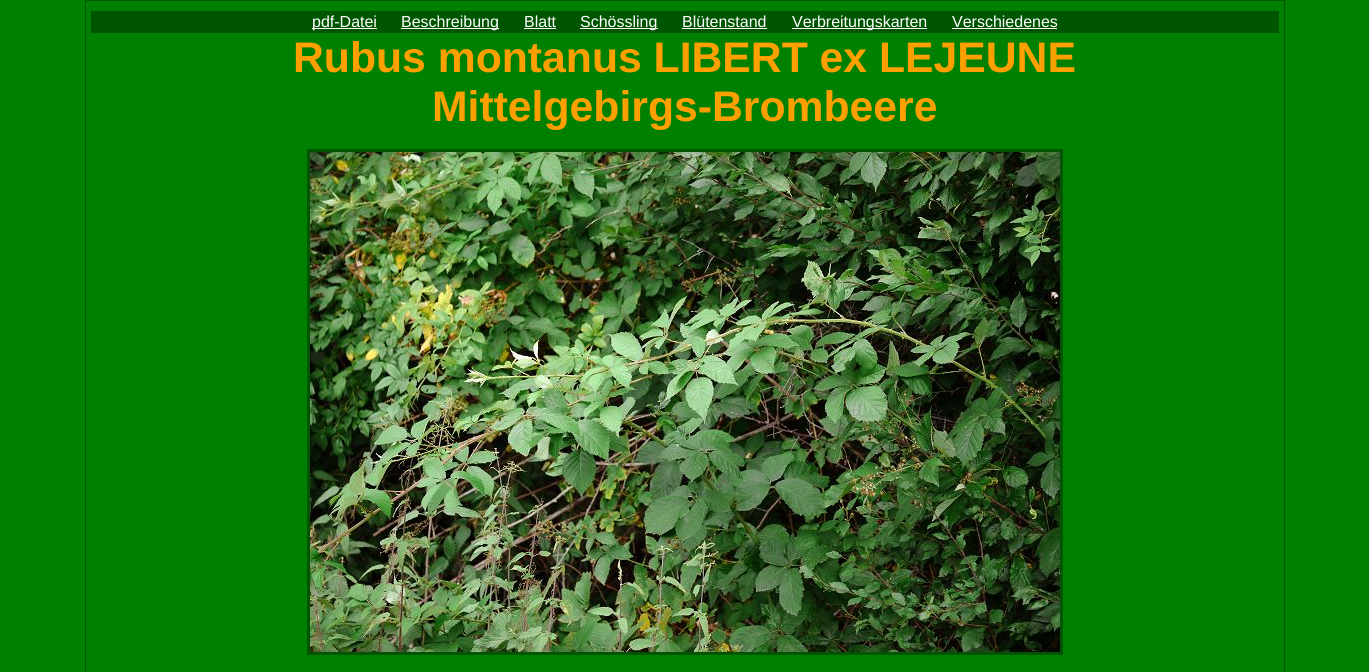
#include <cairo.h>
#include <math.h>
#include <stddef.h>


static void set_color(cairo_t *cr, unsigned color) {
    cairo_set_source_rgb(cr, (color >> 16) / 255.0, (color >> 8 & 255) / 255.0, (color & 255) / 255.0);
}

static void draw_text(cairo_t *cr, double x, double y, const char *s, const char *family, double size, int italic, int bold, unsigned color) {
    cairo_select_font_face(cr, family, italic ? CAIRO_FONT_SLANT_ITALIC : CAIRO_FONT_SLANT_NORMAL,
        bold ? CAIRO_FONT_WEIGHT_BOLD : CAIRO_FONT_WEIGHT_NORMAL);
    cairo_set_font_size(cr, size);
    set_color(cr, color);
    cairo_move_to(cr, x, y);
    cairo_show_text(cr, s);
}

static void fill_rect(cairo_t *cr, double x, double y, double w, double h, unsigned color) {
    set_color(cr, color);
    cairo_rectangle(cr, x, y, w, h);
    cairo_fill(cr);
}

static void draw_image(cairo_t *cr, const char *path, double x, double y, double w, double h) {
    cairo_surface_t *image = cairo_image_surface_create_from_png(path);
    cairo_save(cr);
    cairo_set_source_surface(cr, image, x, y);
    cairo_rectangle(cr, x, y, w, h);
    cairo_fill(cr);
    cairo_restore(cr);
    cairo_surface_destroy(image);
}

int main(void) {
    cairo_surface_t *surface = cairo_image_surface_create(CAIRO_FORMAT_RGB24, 1369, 672);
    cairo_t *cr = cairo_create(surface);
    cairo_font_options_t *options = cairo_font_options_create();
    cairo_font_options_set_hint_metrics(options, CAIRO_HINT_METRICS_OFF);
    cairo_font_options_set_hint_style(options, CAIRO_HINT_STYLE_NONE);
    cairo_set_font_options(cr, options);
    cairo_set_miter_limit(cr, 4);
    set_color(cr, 0x008000);
    cairo_paint(cr);
    cairo_rectangle(cr, 85.5, 0.5, 1199, 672);
    set_color(cr, 0x005500);
    cairo_set_line_width(cr, 1);
    cairo_stroke(cr);
    fill_rect(cr, 91, 11, 1188, 22, 0x005500);
    fill_rect(cr, 312, 28, 65, 1, 0xFFFFFF);
    draw_text(cr, 312, 27, "pdf-Datei", "Liberation Sans", 16, 0, 0, 0xFFFFFF);
    fill_rect(cr, 401, 28, 98, 1, 0xFFFFFF);
    draw_text(cr, 401, 27, "Beschreibung", "Liberation Sans", 16, 0, 0, 0xFFFFFF);
    draw_text(cr, 524, 27, "Blatt", "Liberation Sans", 16, 0, 0, 0xFFFFFF);
    fill_rect(cr, 524, 28, 32, 1, 0xFFFFFF);
    fill_rect(cr, 580, 28, 78, 1, 0xFFFFFF);
    draw_text(cr, 580, 27, "Schössling", "Liberation Sans", 16, 0, 0, 0xFFFFFF);
    draw_text(cr, 682, 27, "Blütenstand", "Liberation Sans", 16, 0, 0, 0xFFFFFF);
    fill_rect(cr, 682, 28, 85, 1, 0xFFFFFF);
    fill_rect(cr, 792, 28, 135, 1, 0xFFFFFF);
    draw_text(cr, 792, 27, "Verbreitungskarten", "Liberation Sans", 16, 0, 0, 0xFFFFFF);
    draw_text(cr, 952, 27, "Verschiedenes", "Liberation Sans", 16, 0, 0, 0xFFFFFF);
    fill_rect(cr, 952, 28, 105, 1, 0xFFFFFF);
    draw_text(cr, 293, 72, "Rubus montanus LIBERT ex LEJEUNE", "Liberation Sans", 42.7, 0, 1, 0xFF9F00);
    draw_text(cr, 432, 121, "Mittelgebirgs-Brombeere", "Liberation Sans", 42.7, 0, 1, 0xFF9F00);
    cairo_rectangle(cr, 308.5, 150.5, 753, 503);
    set_color(cr, 0x005500);
    cairo_set_line_width(cr, 3);
    cairo_stroke(cr);
    draw_image(cr, "assets/img1.png", 310, 152, 750, 500);
    cairo_surface_write_to_png(surface, "output.png");
    cairo_font_options_destroy(options);
    cairo_destroy(cr);
    cairo_surface_destroy(surface);
    return 0;
}
